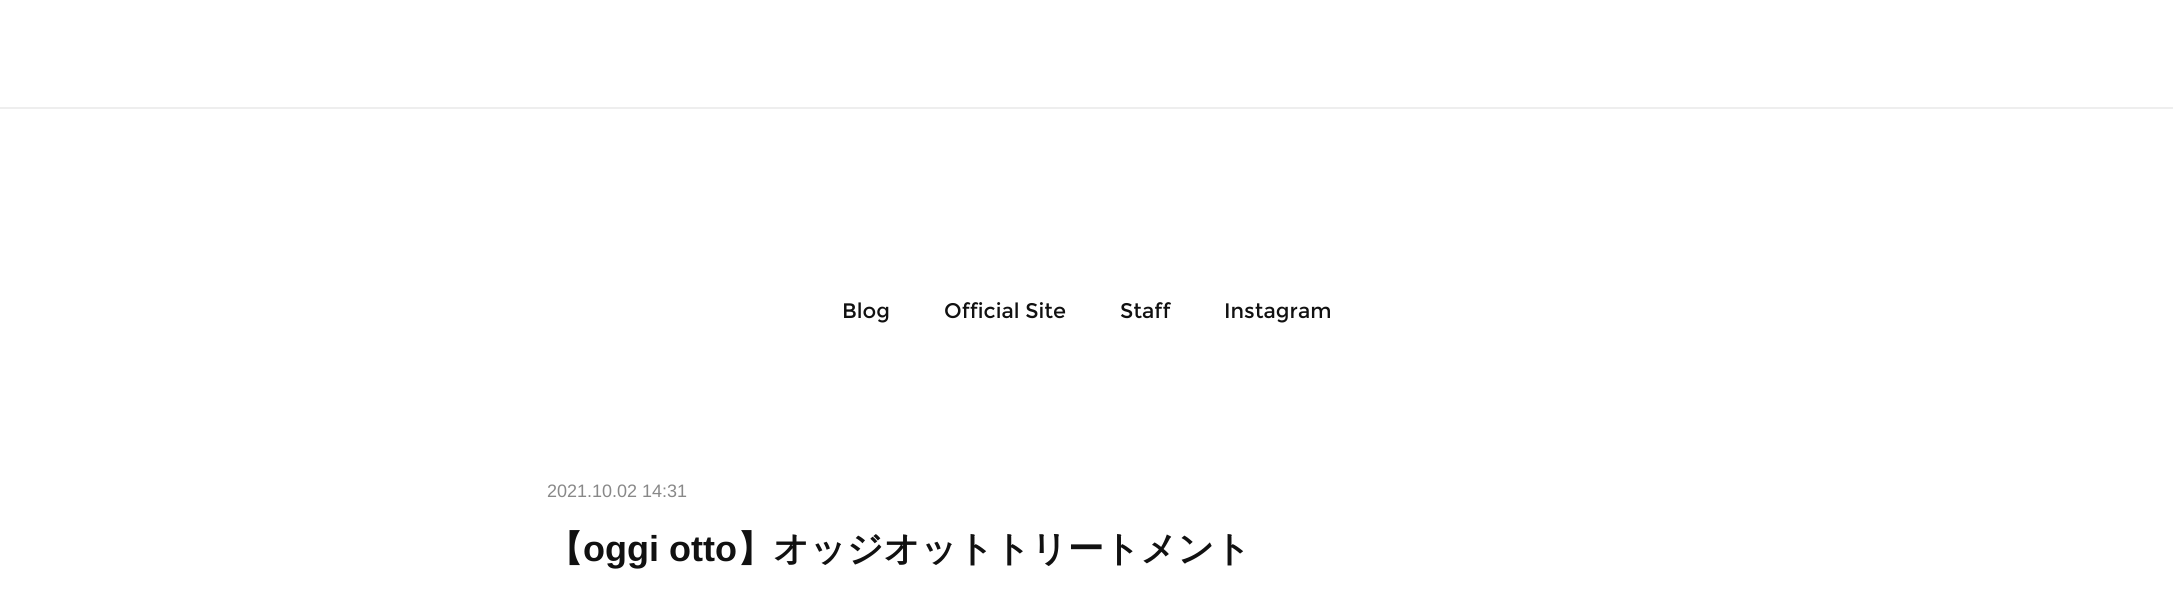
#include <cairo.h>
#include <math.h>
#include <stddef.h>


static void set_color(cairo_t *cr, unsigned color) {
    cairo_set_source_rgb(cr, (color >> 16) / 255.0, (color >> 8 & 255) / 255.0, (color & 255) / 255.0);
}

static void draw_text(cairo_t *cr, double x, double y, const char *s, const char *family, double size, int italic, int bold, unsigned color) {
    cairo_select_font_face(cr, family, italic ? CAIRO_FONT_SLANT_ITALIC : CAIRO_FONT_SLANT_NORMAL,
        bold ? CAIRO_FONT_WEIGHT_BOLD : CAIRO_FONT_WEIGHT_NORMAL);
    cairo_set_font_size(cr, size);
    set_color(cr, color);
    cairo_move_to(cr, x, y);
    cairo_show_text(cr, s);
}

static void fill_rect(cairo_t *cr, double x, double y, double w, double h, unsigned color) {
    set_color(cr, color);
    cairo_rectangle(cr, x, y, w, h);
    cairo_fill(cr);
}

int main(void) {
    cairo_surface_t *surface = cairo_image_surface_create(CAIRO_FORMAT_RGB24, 2173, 612);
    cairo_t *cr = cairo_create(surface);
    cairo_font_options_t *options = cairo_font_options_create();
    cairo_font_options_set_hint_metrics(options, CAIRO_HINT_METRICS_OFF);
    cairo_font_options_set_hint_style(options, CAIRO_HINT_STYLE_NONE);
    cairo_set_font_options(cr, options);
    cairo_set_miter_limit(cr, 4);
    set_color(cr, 0xFFFFFF);
    cairo_paint(cr);
    fill_rect(cr, 0, 107, 2173, 2, 0xEEEEEE);
    draw_text(cr, 842, 318, "Blog", "Montserrat", 21, 0, 0, 0x111111);
    draw_text(cr, 944, 318, "Official Site", "Montserrat", 21, 0, 0, 0x111111);
    draw_text(cr, 1120, 318, "Staff", "Montserrat", 21, 0, 0, 0x111111);
    draw_text(cr, 1224, 318, "Instagram", "Montserrat", 21, 0, 0, 0x111111);
    draw_text(cr, 547, 497, "2021.10.02 14:31", "Liberation Sans", 18, 0, 0, 0x888888);
    draw_text(cr, 547, 561, "【", "WenQuanYi Zen Hei", 36, 0, 1, 0x111111);
    draw_text(cr, 583, 561, "oggi otto", "Liberation Sans", 36, 0, 1, 0x111111);
    draw_text(cr, 737, 561, "】オッジオットトリートメント", "WenQuanYi Zen Hei", 36, 0, 1, 0x111111);
    cairo_surface_write_to_png(surface, "output.png");
    cairo_font_options_destroy(options);
    cairo_destroy(cr);
    cairo_surface_destroy(surface);
    return 0;
}
